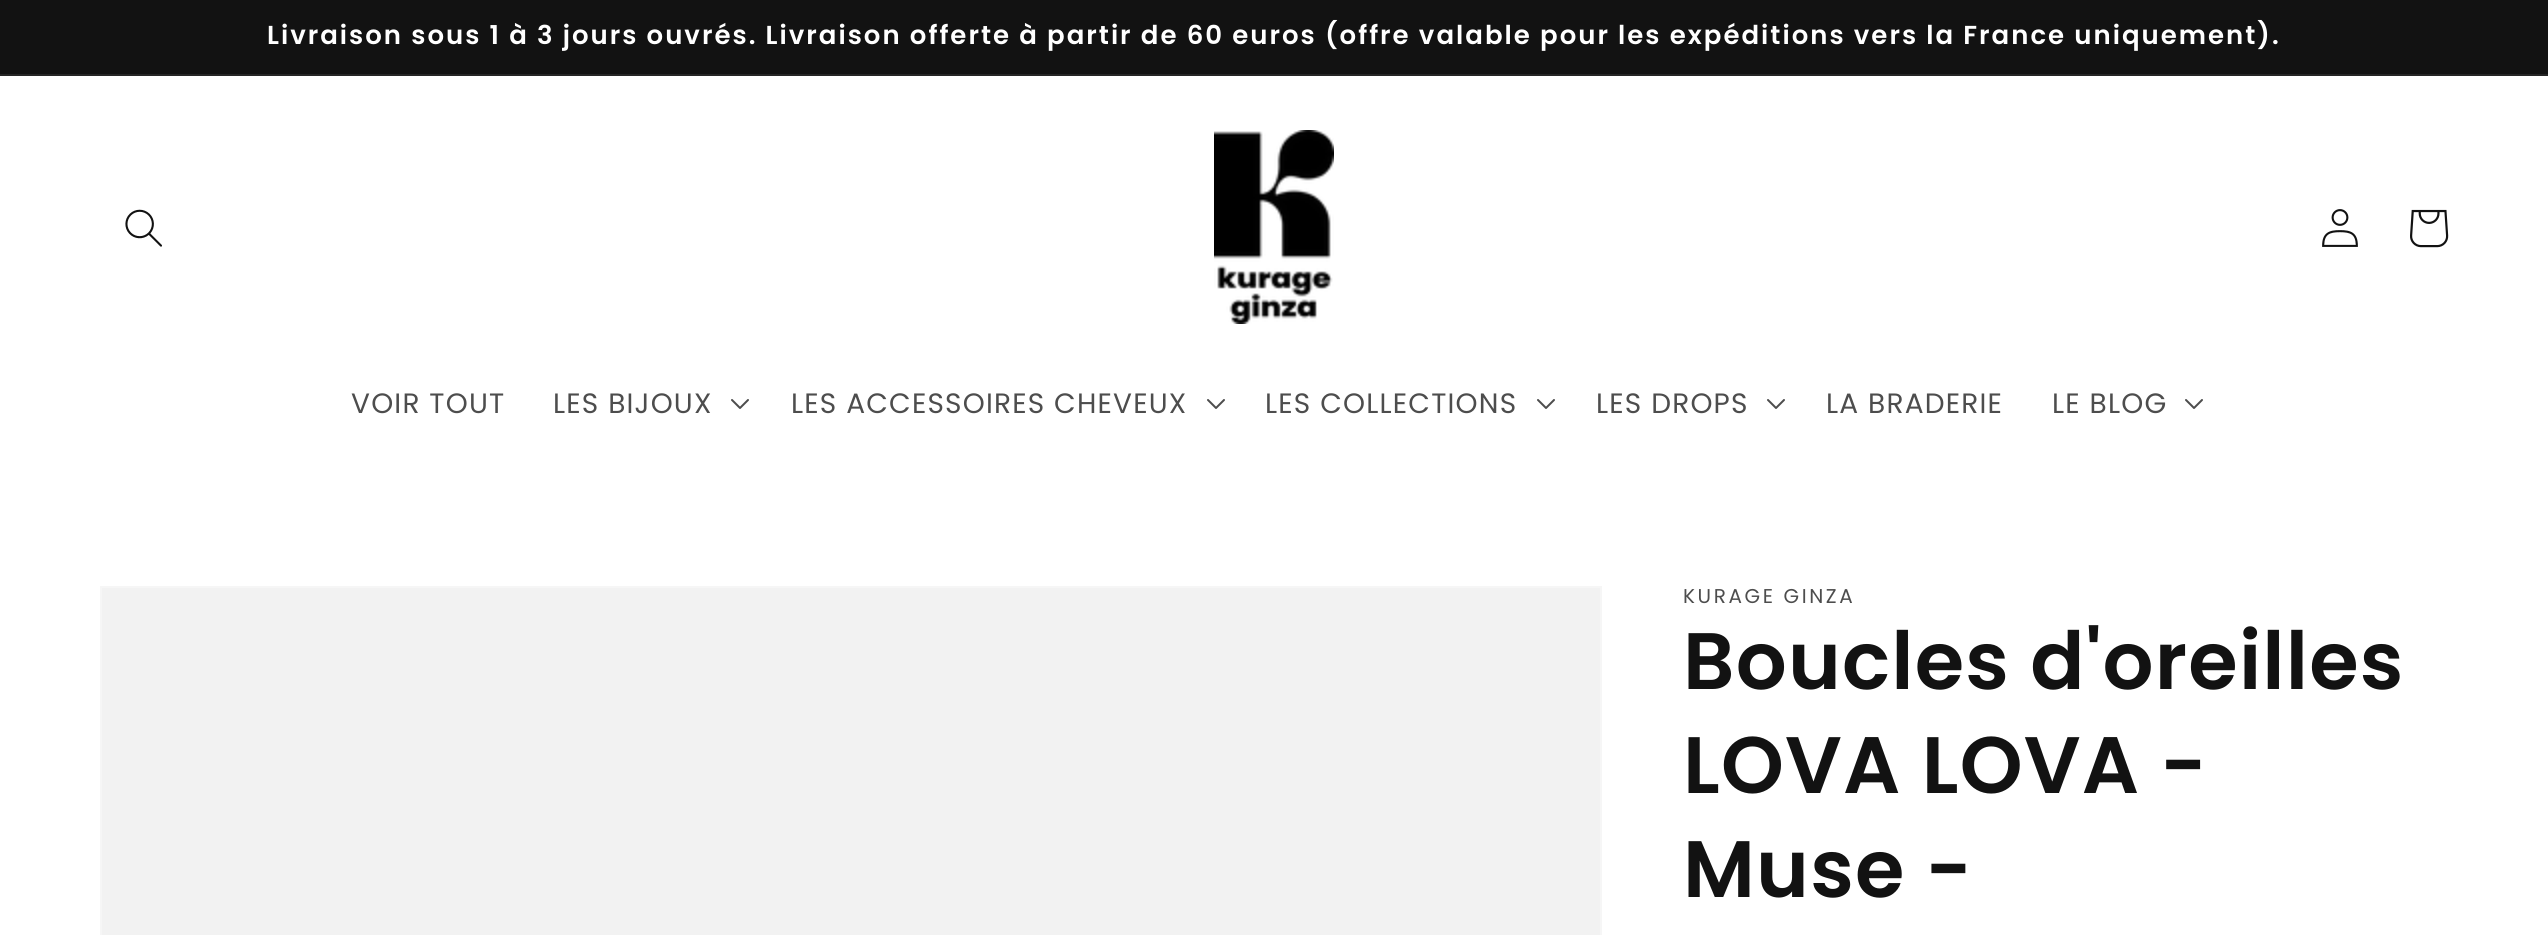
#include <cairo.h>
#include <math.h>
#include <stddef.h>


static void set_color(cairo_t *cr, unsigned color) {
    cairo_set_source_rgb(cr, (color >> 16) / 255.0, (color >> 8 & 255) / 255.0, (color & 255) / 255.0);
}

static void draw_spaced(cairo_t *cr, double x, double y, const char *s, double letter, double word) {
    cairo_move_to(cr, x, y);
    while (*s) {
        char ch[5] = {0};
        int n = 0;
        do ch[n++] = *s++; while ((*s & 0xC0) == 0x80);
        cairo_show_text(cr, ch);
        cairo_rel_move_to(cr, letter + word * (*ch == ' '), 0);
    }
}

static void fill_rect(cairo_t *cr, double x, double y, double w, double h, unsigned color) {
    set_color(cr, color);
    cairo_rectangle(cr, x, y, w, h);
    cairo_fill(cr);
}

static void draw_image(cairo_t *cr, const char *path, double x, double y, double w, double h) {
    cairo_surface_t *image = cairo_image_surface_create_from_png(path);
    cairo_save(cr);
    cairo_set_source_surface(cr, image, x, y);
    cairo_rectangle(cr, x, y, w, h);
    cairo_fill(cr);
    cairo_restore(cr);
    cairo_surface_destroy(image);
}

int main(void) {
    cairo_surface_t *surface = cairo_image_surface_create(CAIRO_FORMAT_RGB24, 2548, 935);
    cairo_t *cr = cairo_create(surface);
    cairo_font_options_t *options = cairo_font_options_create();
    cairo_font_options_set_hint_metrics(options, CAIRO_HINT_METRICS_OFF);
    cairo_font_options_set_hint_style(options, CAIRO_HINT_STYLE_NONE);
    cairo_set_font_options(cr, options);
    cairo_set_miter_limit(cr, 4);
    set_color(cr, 0xFFFFFF);
    cairo_paint(cr);
    fill_rect(cr, 0, 0, 2548, 74, 0x121212);
    fill_rect(cr, 0, 74, 2548, 2, 0x252525);
    cairo_select_font_face(cr, "Poppins SemiBold", CAIRO_FONT_SLANT_NORMAL, CAIRO_FONT_WEIGHT_NORMAL);
    cairo_set_font_size(cr, 26);
    set_color(cr, 0xFFFFFF);
    draw_spaced(cr, 267, 44, "Livraison sous 1 à 3 jours ouvrés. Livraison offerte à partir de 60 euros (offre valable pour les expéditions vers la France uniquement).", 2, 0);
    draw_image(cr, "assets/img1.png", 125, 209, 37, 38);
    draw_image(cr, "assets/img2.png", 1214, 130, 120, 194);
    draw_image(cr, "assets/img3.png", 2322, 209, 36, 38);
    draw_image(cr, "assets/img4.png", 2410, 209, 39, 39);
    cairo_select_font_face(cr, "Poppins", CAIRO_FONT_SLANT_NORMAL, CAIRO_FONT_WEIGHT_NORMAL);
    cairo_set_font_size(cr, 28);
    set_color(cr, 0x4D4D4D);
    draw_spaced(cr, 351, 413, "VOIR TOUT", 1.2, 0);
    draw_spaced(cr, 553, 413, "LES BIJOUX", 1.2, 0);
    draw_image(cr, "assets/img5.png", 731, 399, 18, 10);
    draw_spaced(cr, 791, 413, "LES ACCESSOIRES CHEVEUX", 1.2, 0);
    draw_image(cr, "assets/img5.png", 1207, 399, 18, 10);
    draw_spaced(cr, 1265, 413, "LES COLLECTIONS", 1.2, 0);
    draw_image(cr, "assets/img5.png", 1537, 399, 18, 10);
    draw_spaced(cr, 1596, 413, "LES DROPS", 1.2, 0);
    draw_image(cr, "assets/img5.png", 1767, 399, 18, 10);
    draw_spaced(cr, 1826, 413, "LA BRADERIE", 1.2, 0);
    draw_spaced(cr, 2052, 413, "LE BLOG", 1.2, 0);
    draw_image(cr, "assets/img5.png", 2185, 399, 18, 10);
    cairo_rectangle(cr, 101, 587, 1500, 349);
    set_color(cr, 0xF6F6F6);
    cairo_stroke(cr);
    fill_rect(cr, 102, 588, 1498, 347, 0xF2F2F2);
    cairo_set_font_size(cr, 20);
    set_color(cr, 0x4D4D4D);
    draw_spaced(cr, 1683, 603, "KURAGE GINZA", 2.6, 0);
    cairo_select_font_face(cr, "Poppins SemiBold", CAIRO_FONT_SLANT_NORMAL, CAIRO_FONT_WEIGHT_NORMAL);
    cairo_set_font_size(cr, 80);
    set_color(cr, 0x121212);
    draw_spaced(cr, 1683, 689, "Boucles d'oreilles", 1.2, 0);
    draw_spaced(cr, 1683, 793, "LOVA LOVA -", 1.2, 0);
    draw_spaced(cr, 1683, 897, "Muse -", 1.2, 0);
    cairo_surface_write_to_png(surface, "output.png");
    cairo_font_options_destroy(options);
    cairo_destroy(cr);
    cairo_surface_destroy(surface);
    return 0;
}
